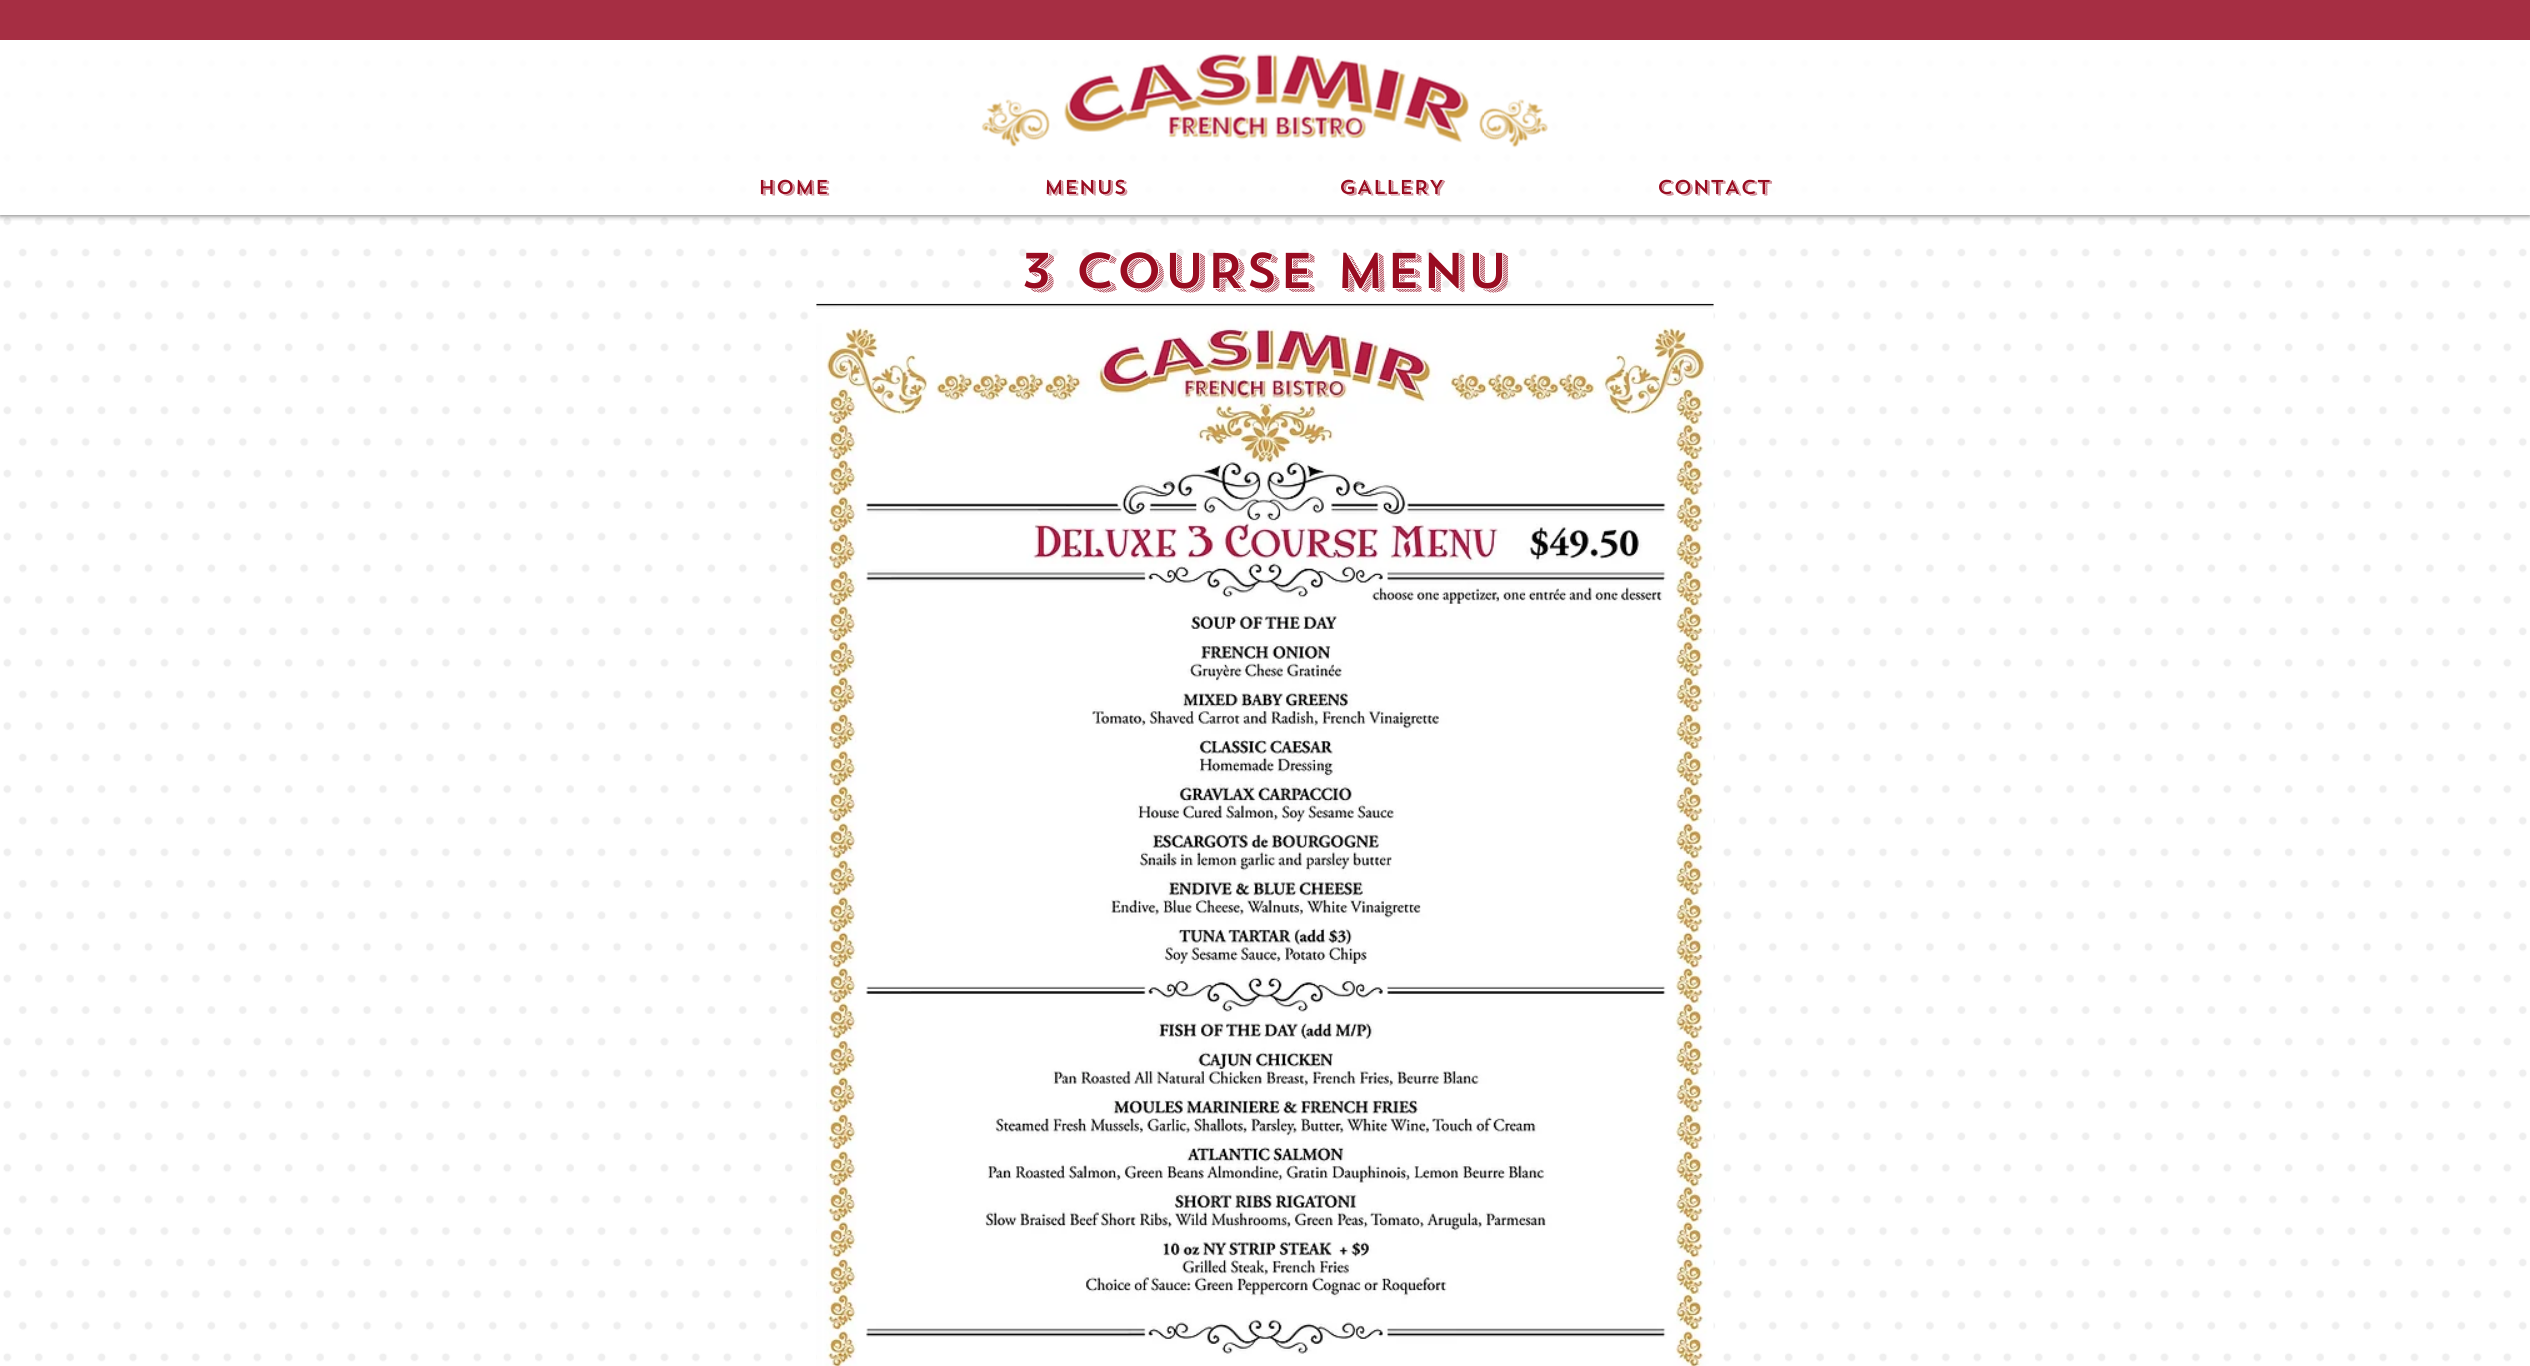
#include <cairo.h>
#include <math.h>
#include <stddef.h>


static void set_color(cairo_t *cr, unsigned color) {
    cairo_set_source_rgb(cr, (color >> 16) / 255.0, (color >> 8 & 255) / 255.0, (color & 255) / 255.0);
}

static void draw_text(cairo_t *cr, double x, double y, const char *s, const char *family, double size, int italic, int bold, unsigned color) {
    cairo_select_font_face(cr, family, italic ? CAIRO_FONT_SLANT_ITALIC : CAIRO_FONT_SLANT_NORMAL,
        bold ? CAIRO_FONT_WEIGHT_BOLD : CAIRO_FONT_WEIGHT_NORMAL);
    cairo_set_font_size(cr, size);
    set_color(cr, color);
    cairo_move_to(cr, x, y);
    cairo_show_text(cr, s);
}

static void fill_rect(cairo_t *cr, double x, double y, double w, double h, unsigned color) {
    set_color(cr, color);
    cairo_rectangle(cr, x, y, w, h);
    cairo_fill(cr);
}

static void rounded_rect(cairo_t *cr, double x, double y, double w, double h, double r) {
    cairo_new_sub_path(cr);
    cairo_arc(cr, x + w - r, y + h - r, r, 0, M_PI / 2);
    cairo_arc(cr, x + r, y + h - r, r, M_PI / 2, M_PI);
    cairo_arc(cr, x + r, y + r, r, M_PI, 1.5 * M_PI);
    cairo_arc(cr, x + w - r, y + r, r, 1.5 * M_PI, 2 * M_PI);
    cairo_close_path(cr);
}

static void draw_shadow(cairo_t *cr, double x, double y, double w, double h, double r, double blur, double alpha) {
    cairo_push_group_with_content(cr, CAIRO_CONTENT_ALPHA);
    cairo_set_operator(cr, CAIRO_OPERATOR_SOURCE);
    for (int i = 15; i >= -15 && fmin(w, h) + blur * i / 3 > 0; i -= 2) {
        double e = blur * i / 6;
        cairo_set_source_rgba(cr, 0, 0, 0, alpha * erfc((i - 1) / 8.5) / 2);
        rounded_rect(cr, x - e, y - e, w + 2 * e, h + 2 * e, fmax(0, fmin(r + e + blur * .6, fmin(w, h) / 2 + e)));
        cairo_fill(cr);
    }
    cairo_pattern_t *soft = cairo_pop_group(cr);
    cairo_mask(cr, soft);
    cairo_pattern_destroy(soft);
}

static void draw_image(cairo_t *cr, const char *path, double x, double y, double w, double h) {
    cairo_surface_t *image = cairo_image_surface_create_from_png(path);
    cairo_save(cr);
    cairo_set_source_surface(cr, image, x, y);
    cairo_rectangle(cr, x, y, w, h);
    cairo_fill(cr);
    cairo_restore(cr);
    cairo_surface_destroy(image);
}

int main(void) {
    cairo_surface_t *surface = cairo_image_surface_create(CAIRO_FORMAT_RGB24, 2530, 1366);
    cairo_t *cr = cairo_create(surface);
    cairo_font_options_t *options = cairo_font_options_create();
    cairo_font_options_set_hint_metrics(options, CAIRO_HINT_METRICS_OFF);
    cairo_font_options_set_hint_style(options, CAIRO_HINT_STYLE_NONE);
    cairo_set_font_options(cr, options);
    cairo_set_miter_limit(cr, 4);
    set_color(cr, 0xFFFFFF);
    cairo_paint(cr);
    draw_image(cr, "assets/img1.png", 3, 59, 2524, 1303);
    cairo_save(cr);
    cairo_rectangle(cr, 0, 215, 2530, 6);
    cairo_clip(cr);
    set_color(cr, 0x000000);
    draw_shadow(cr, 0, 0, 2530, 215, 0, 3, 0.7);
    cairo_restore(cr);
    cairo_set_source_rgba(cr, 1, 1, 1, 0.9);
    cairo_rectangle(cr, 3, 59, 2524, 135);
    cairo_fill(cr);
    fill_rect(cr, 0, 0, 2530, 40, 0xA62E43);
    draw_image(cr, "assets/img2.png", 981, 99, 69, 48);
    draw_image(cr, "assets/img3.png", 1064, 53, 405, 90);
    draw_image(cr, "assets/img4.png", 1479, 99, 70, 49);
    draw_text(cr, 758, 194, "HOME", "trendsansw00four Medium", 20, 0, 0, 0x990C21);
    draw_text(cr, 1044, 194, "MENUS", "trendsansw00four Medium", 20, 0, 0, 0x990C21);
    draw_text(cr, 1339, 194, "GALLERY", "trendsansw00four Medium", 20, 0, 0, 0x990C21);
    draw_text(cr, 1657, 194, "CONTACT", "trendsansw00four Medium", 20, 0, 0, 0x990C21);
    draw_text(cr, 1020, 288, "3 COURSE MENU", "trendsansw00four Medium", 50, 0, 0, 0x990C21);
    draw_image(cr, "assets/img5.png", 816, 303, 898, 1063);
    cairo_surface_write_to_png(surface, "output.png");
    cairo_font_options_destroy(options);
    cairo_destroy(cr);
    cairo_surface_destroy(surface);
    return 0;
}
